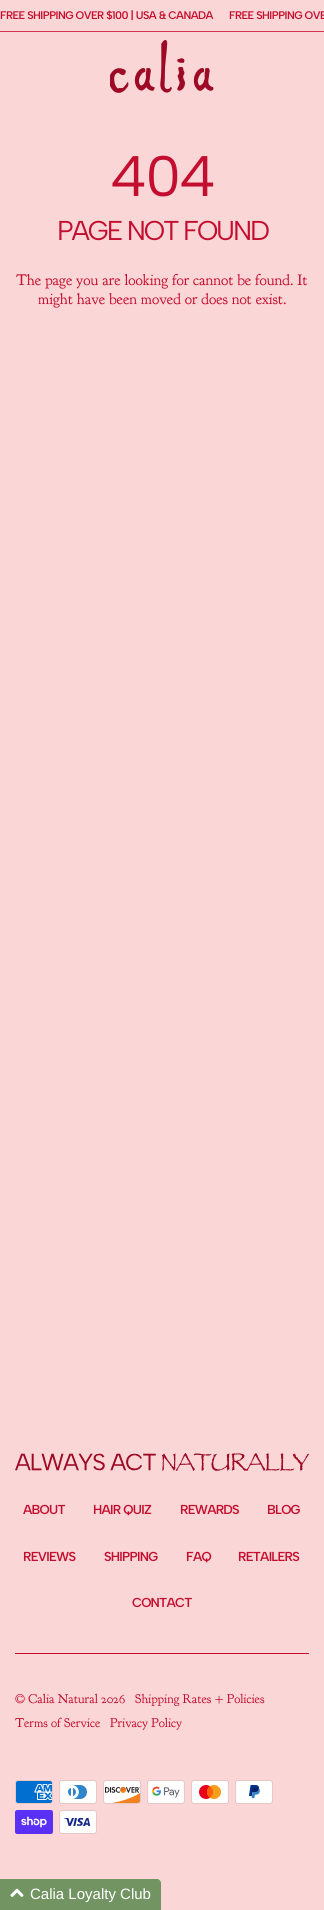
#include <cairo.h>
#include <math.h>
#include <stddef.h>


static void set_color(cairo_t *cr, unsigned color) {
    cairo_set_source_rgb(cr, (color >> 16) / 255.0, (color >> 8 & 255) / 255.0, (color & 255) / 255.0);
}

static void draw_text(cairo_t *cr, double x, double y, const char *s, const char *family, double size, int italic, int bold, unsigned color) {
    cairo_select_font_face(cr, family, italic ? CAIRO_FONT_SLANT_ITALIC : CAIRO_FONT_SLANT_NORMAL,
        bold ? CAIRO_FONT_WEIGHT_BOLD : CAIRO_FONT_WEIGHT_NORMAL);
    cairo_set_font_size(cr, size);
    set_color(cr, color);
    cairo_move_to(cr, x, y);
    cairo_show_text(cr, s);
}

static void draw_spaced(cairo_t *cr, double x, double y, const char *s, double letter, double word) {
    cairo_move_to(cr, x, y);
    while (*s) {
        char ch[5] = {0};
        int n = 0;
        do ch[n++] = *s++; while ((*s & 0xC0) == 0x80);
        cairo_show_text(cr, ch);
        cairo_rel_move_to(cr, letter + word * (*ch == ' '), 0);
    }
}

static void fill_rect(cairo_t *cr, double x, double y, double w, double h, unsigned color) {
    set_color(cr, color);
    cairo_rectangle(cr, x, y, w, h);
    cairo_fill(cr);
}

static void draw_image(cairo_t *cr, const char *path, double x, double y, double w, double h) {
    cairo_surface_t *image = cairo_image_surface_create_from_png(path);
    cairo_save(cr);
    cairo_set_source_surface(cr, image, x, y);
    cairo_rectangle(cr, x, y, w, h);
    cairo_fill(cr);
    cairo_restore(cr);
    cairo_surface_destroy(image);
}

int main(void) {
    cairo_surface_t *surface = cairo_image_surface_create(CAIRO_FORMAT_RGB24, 324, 1910);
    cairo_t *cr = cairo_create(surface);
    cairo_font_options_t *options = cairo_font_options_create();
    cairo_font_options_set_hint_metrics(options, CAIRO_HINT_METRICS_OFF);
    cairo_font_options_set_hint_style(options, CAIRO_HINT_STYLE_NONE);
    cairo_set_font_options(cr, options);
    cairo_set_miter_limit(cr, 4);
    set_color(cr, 0xFAD6D6);
    cairo_paint(cr);
    fill_rect(cr, 0, 31, 324, 1, 0xCF3650);
    cairo_select_font_face(cr, "Albert Sans SemiBold", CAIRO_FONT_SLANT_NORMAL, CAIRO_FONT_WEIGHT_NORMAL);
    cairo_set_font_size(cr, 11);
    set_color(cr, 0xC40E2F);
    draw_spaced(cr, 0, 19, "FREE SHIPPING OVER $100 | USA & CANADA", -0.55, 0);
    draw_spaced(cr, 229, 19, "FREE SHIPPING OVE", -0.55, 0);
    draw_image(cr, "assets/img1.png", 110, 40, 104, 53);
    cairo_select_font_face(cr, "Albert Sans", CAIRO_FONT_SLANT_NORMAL, CAIRO_FONT_WEIGHT_NORMAL);
    cairo_set_font_size(cr, 57);
    draw_spaced(cr, 110, 196, "404", -2.1, 0);
    cairo_set_font_size(cr, 27.25);
    draw_spaced(cr, 57, 240, "PAGE NOT FOUND", -2.1, 0);
    draw_text(cr, 16, 285, "The page you are looking for cannot be found. It", "Goudy Bookletter 1911", 15.5, 0, 0, 0xC40E2F);
    draw_text(cr, 38, 304, "might have been moved or does not exist.", "Goudy Bookletter 1911", 15.5, 0, 0, 0xC40E2F);
    draw_image(cr, "assets/img2.png", 15, 1453, 294, 18);
    cairo_select_font_face(cr, "Albert Sans SemiBold", CAIRO_FONT_SLANT_NORMAL, CAIRO_FONT_WEIGHT_NORMAL);
    cairo_set_font_size(cr, 13);
    draw_spaced(cr, 23, 1514, "ABOUT", -0.75, 0);
    draw_spaced(cr, 93, 1514, "HAIR QUIZ", -0.75, 0);
    draw_spaced(cr, 180, 1514, "REWARDS", -0.75, 0);
    draw_spaced(cr, 267, 1514, "BLOG", -0.75, 0);
    draw_spaced(cr, 23, 1561, "REVIEWS", -0.75, 0);
    draw_spaced(cr, 104, 1561, "SHIPPING", -0.75, 0);
    cairo_save(cr);
    cairo_rectangle(cr, 186, 1548, 25, 16);
    cairo_clip(cr);
    draw_spaced(cr, 186, 1561, "FAQ", -0.75, 0);
    cairo_restore(cr);
    draw_spaced(cr, 238, 1561, "RETAILERS", -0.75, 0);
    draw_spaced(cr, 132, 1607, "CONTACT", -0.75, 0);
    fill_rect(cr, 15, 1653, 294, 1, 0xC30D2E);
    draw_text(cr, 15, 1703, "© Calia Natural 2026", "Goudy Bookletter 1911", 13, 0, 0, 0xC40E2F);
    draw_text(cr, 135, 1703, "Shipping Rates + Policies", "Goudy Bookletter 1911", 13, 0, 0, 0xC40E2F);
    draw_text(cr, 15, 1727, "Terms of Service", "Goudy Bookletter 1911", 13, 0, 0, 0xC40E2F);
    draw_text(cr, 110, 1727, "Privacy Policy", "Goudy Bookletter 1911", 13, 0, 0, 0xC40E2F);
    draw_image(cr, "assets/img3.png", 15, 1780, 38, 24);
    draw_image(cr, "assets/img4.png", 59, 1780, 38, 24);
    draw_image(cr, "assets/img5.png", 103, 1780, 38, 24);
    draw_image(cr, "assets/img6.png", 147, 1780, 38, 24);
    draw_image(cr, "assets/img7.png", 191, 1780, 38, 24);
    draw_image(cr, "assets/img8.png", 235, 1780, 38, 24);
    draw_image(cr, "assets/img9.png", 15, 1810, 38, 24);
    draw_image(cr, "assets/img10.png", 59, 1810, 38, 24);
    set_color(cr, 0x729463);
    cairo_new_path(cr);
    cairo_move_to(cr, 0, 1879);
    cairo_line_to(cr, 157, 1879);
    cairo_curve_to(cr, 159, 1879, 161, 1881, 161, 1883);
    cairo_line_to(cr, 161, 1910);
    cairo_line_to(cr, 0, 1910);
    cairo_close_path(cr);
    cairo_fill(cr);
    draw_image(cr, "assets/img11.png", 10, 1888, 14, 9);
    draw_text(cr, 30, 1899, "Calia Loyalty Club", "Liberation Sans", 15, 0, 0, 0xFFFFFF);
    cairo_surface_write_to_png(surface, "output.png");
    cairo_font_options_destroy(options);
    cairo_destroy(cr);
    cairo_surface_destroy(surface);
    return 0;
}
